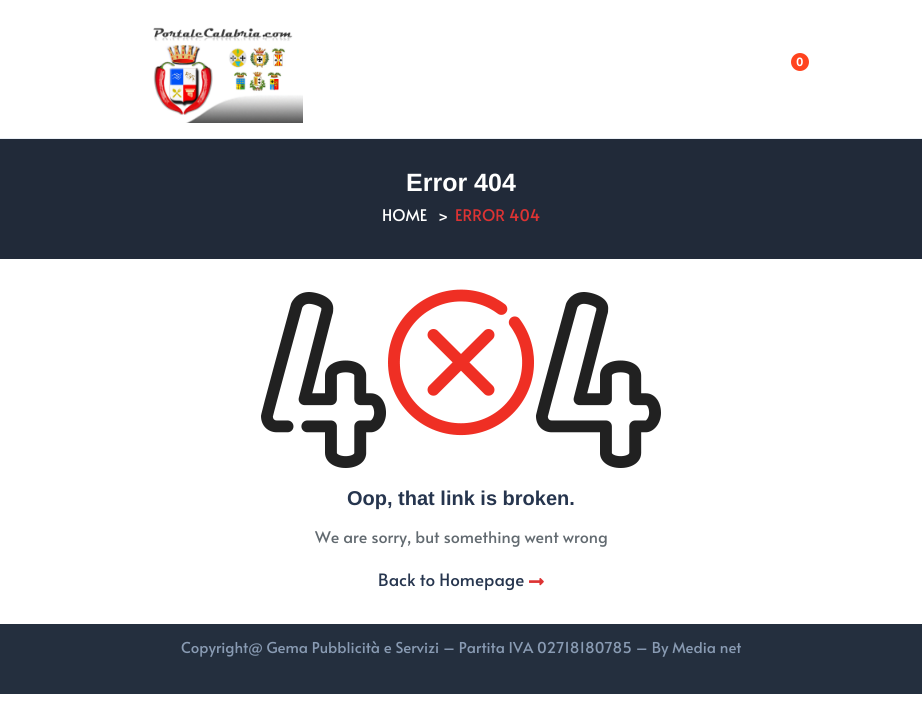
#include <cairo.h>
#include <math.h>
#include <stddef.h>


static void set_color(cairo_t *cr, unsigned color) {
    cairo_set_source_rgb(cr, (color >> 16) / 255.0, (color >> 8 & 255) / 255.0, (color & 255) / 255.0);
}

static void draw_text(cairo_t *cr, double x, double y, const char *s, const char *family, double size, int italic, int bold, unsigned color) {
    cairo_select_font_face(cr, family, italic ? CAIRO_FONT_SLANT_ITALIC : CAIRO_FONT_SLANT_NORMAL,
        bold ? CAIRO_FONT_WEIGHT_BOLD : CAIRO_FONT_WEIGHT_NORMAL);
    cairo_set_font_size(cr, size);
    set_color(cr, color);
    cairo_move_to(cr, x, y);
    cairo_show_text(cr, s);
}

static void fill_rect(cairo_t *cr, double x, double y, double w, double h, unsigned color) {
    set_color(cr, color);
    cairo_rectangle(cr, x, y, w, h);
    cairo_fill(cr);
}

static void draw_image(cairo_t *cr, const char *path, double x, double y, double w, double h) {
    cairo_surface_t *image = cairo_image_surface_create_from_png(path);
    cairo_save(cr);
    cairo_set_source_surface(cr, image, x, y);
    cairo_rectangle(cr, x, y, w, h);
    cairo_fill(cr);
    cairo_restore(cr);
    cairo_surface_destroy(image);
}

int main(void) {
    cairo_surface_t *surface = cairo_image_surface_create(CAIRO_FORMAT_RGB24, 922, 720);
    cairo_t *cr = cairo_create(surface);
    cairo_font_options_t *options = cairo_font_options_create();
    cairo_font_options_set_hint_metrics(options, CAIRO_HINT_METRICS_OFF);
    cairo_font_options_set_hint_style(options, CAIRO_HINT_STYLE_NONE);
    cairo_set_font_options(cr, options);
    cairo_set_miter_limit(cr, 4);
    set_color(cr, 0xFFFFFF);
    cairo_paint(cr);
    fill_rect(cr, 0, 138, 922, 1, 0xEAEFF5);
    draw_image(cr, "assets/img1.png", 153, 27, 150, 96);
    set_color(cr, 0xFF431E);
    cairo_arc(cr, 800, 62, 9, 0, 2 * M_PI);
    cairo_fill(cr);
    draw_text(cr, 796, 66, "0", "Alata", 11, 0, 1, 0xFFFFFF);
    fill_rect(cr, 0, 139, 922, 120, 0x212A39);
    draw_text(cr, 406, 191, "Error 404", "Liberation Sans", 25, 0, 1, 0xFFFFFF);
    draw_text(cr, 382, 221, "HOME", "Alata", 16, 0, 0, 0xFFFFFF);
    draw_text(cr, 438, 221, ">", "Alata", 16, 0, 0, 0xFFFFFF);
    draw_text(cr, 455, 221, "ERROR 404", "Alata", 16, 0, 0, 0xDD3333);
    draw_image(cr, "assets/img2.png", 261, 289, 400, 179);
    draw_text(cr, 347, 505, "Oop, that link is broken.", "Liberation Sans", 20, 0, 1, 0x26354E);
    draw_text(cr, 315, 543, "We are sorry, but something went wrong", "Alata", 16, 0, 0, 0x626A70);
    draw_text(cr, 378, 586, "Back to Homepage", "Alata", 17, 0, 0, 0x26354E);
    draw_image(cr, "assets/img3.png", 529, 578, 15, 8);
    fill_rect(cr, 0, 624, 922, 70, 0x242F3E);
    draw_text(cr, 181, 653, "Copyright@ Gema Pubblicità e Servizi – Partita IVA 02718180785 – By Media net", "Alata", 15, 0, 0, 0x899BB3);
    cairo_surface_write_to_png(surface, "output.png");
    cairo_font_options_destroy(options);
    cairo_destroy(cr);
    cairo_surface_destroy(surface);
    return 0;
}
